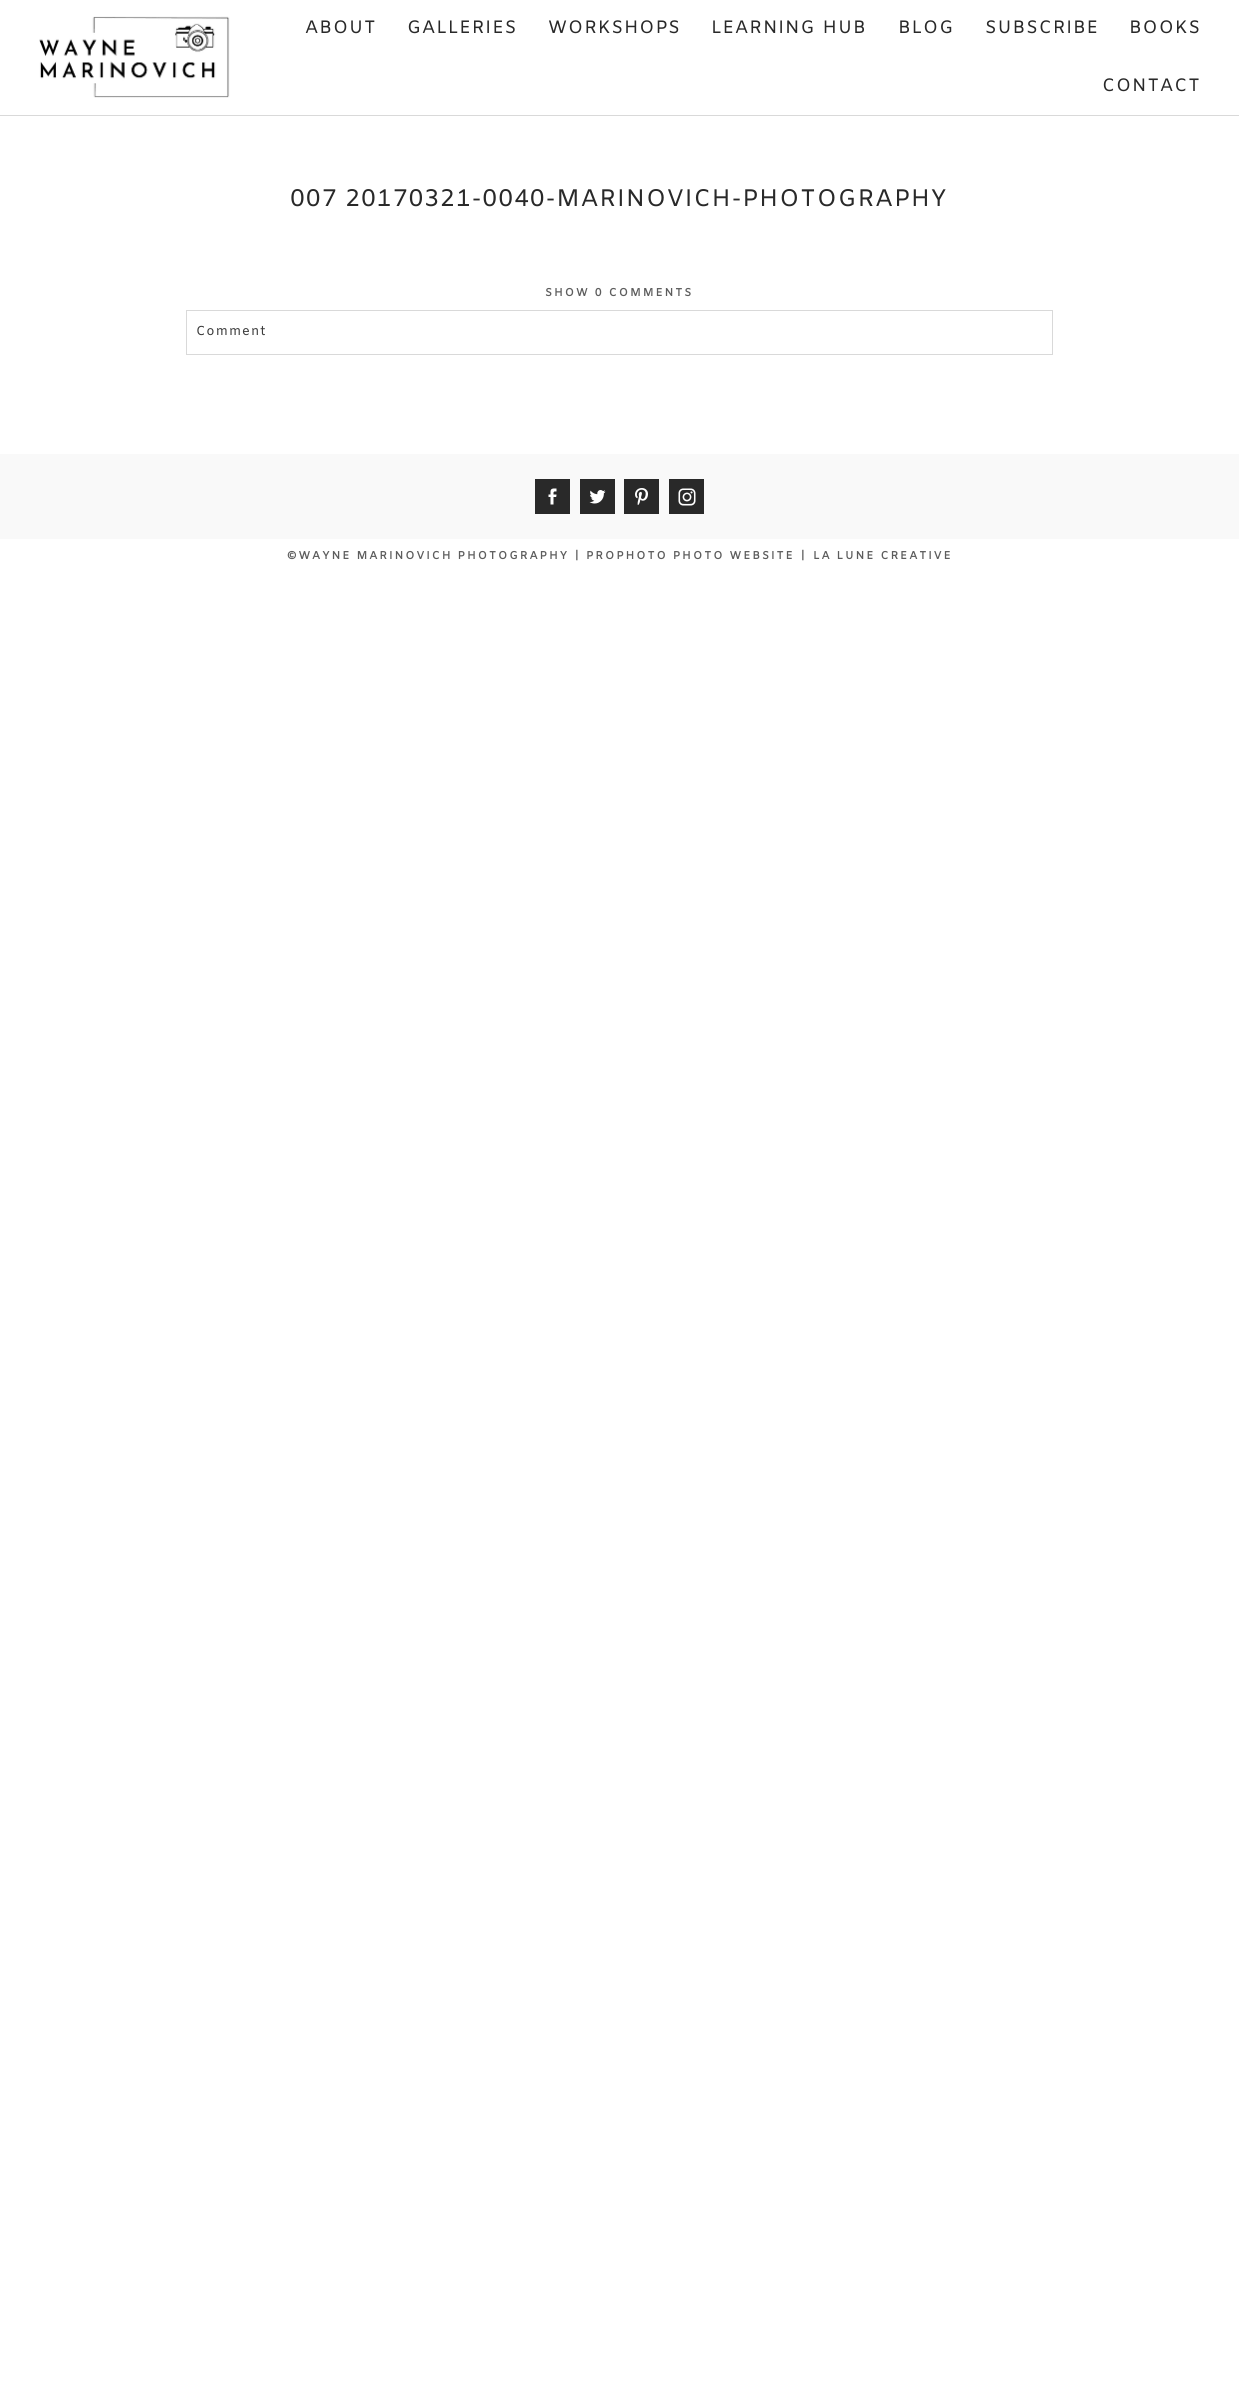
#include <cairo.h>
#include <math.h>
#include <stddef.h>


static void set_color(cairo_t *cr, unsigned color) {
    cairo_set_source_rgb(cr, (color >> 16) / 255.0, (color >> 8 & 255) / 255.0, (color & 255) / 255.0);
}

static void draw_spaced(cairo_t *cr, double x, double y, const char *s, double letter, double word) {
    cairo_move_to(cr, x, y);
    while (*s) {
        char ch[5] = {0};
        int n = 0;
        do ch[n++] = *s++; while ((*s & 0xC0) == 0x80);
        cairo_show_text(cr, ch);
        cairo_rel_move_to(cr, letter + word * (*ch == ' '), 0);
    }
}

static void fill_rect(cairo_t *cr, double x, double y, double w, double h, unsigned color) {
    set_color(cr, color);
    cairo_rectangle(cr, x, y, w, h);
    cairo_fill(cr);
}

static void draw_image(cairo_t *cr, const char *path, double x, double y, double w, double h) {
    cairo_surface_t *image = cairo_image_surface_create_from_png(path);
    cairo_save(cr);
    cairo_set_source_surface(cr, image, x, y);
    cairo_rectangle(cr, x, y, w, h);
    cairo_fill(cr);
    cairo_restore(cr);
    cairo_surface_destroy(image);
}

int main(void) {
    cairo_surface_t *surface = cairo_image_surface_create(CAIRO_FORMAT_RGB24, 1239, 2393);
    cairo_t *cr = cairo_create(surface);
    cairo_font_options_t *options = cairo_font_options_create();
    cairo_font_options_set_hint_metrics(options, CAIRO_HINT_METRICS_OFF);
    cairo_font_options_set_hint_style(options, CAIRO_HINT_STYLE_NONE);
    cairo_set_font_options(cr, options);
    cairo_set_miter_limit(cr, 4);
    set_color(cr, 0xFFFFFF);
    cairo_paint(cr);
    fill_rect(cr, 0, 115, 1239, 1, 0xD9D9D9);
    draw_image(cr, "assets/img1.png", 39, 16, 191, 82);
    cairo_select_font_face(cr, "Amiko", CAIRO_FONT_SLANT_NORMAL, CAIRO_FONT_WEIGHT_NORMAL);
    cairo_set_font_size(cr, 18);
    set_color(cr, 0x292929);
    draw_spaced(cr, 305, 33, "ABOUT", 1, 0);
    draw_spaced(cr, 407, 33, "GALLERIES", 1, 0);
    draw_spaced(cr, 548, 33, "WORKSHOPS", 1, 0);
    draw_spaced(cr, 711, 33, "LEARNING HUB", 1, 1);
    draw_spaced(cr, 898, 33, "BLOG", 1, 0);
    draw_spaced(cr, 985, 33, "SUBSCRIBE", 1, 0);
    draw_spaced(cr, 1129, 33, "BOOKS", 1, 0);
    draw_spaced(cr, 1102, 91, "CONTACT", 1, 0);
    cairo_set_font_size(cr, 24);
    draw_spaced(cr, 290, 206, "007 20170321-0040-MARINOVICH-PHOTOGRAPHY", 0.95, 0);
    cairo_select_font_face(cr, "Amiko", CAIRO_FONT_SLANT_NORMAL, CAIRO_FONT_WEIGHT_BOLD);
    cairo_set_font_size(cr, 11);
    set_color(cr, 0x5D5D5D);
    draw_spaced(cr, 545, 296, "SHOW 0 COMMENTS", 2, 0);
    cairo_rectangle(cr, 186.5, 310.5, 866, 44);
    set_color(cr, 0xD9D9D9);
    cairo_set_line_width(cr, 1);
    cairo_stroke(cr);
    cairo_select_font_face(cr, "Amiko", CAIRO_FONT_SLANT_NORMAL, CAIRO_FONT_WEIGHT_NORMAL);
    cairo_set_font_size(cr, 13);
    set_color(cr, 0x3D3D3D);
    draw_spaced(cr, 196, 335, "Comment", 1, 0);
    fill_rect(cr, 0, 454, 1239, 85, 0xF9F9F9);
    draw_image(cr, "assets/img2.png", 535, 479, 35, 35);
    draw_image(cr, "assets/img3.png", 580, 479, 35, 35);
    draw_image(cr, "assets/img4.png", 624, 479, 35, 35);
    draw_image(cr, "assets/img5.png", 669, 479, 35, 35);
    cairo_select_font_face(cr, "Amiko", CAIRO_FONT_SLANT_NORMAL, CAIRO_FONT_WEIGHT_BOLD);
    cairo_set_font_size(cr, 11);
    set_color(cr, 0x5D5D5D);
    draw_spaced(cr, 287, 559, "©WAYNE MARINOVICH PHOTOGRAPHY", 2, 0);
    draw_spaced(cr, 575, 559, "|", 2, 0);
    draw_spaced(cr, 586, 559, "PROPHOTO PHOTO WEBSITE", 2, 0);
    draw_spaced(cr, 801, 559, "|", 2, 0);
    draw_spaced(cr, 813, 559, "LA LUNE CREATIVE", 2, 0);
    cairo_surface_write_to_png(surface, "output.png");
    cairo_font_options_destroy(options);
    cairo_destroy(cr);
    cairo_surface_destroy(surface);
    return 0;
}
